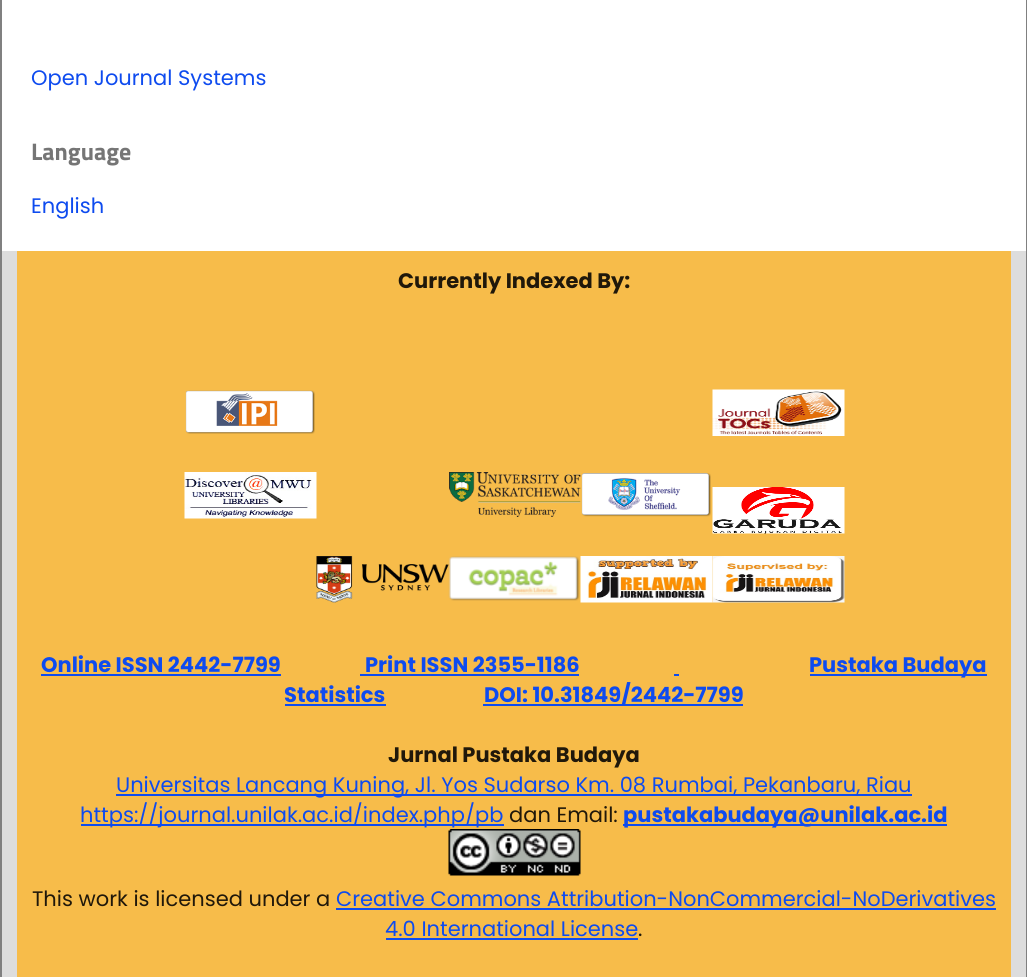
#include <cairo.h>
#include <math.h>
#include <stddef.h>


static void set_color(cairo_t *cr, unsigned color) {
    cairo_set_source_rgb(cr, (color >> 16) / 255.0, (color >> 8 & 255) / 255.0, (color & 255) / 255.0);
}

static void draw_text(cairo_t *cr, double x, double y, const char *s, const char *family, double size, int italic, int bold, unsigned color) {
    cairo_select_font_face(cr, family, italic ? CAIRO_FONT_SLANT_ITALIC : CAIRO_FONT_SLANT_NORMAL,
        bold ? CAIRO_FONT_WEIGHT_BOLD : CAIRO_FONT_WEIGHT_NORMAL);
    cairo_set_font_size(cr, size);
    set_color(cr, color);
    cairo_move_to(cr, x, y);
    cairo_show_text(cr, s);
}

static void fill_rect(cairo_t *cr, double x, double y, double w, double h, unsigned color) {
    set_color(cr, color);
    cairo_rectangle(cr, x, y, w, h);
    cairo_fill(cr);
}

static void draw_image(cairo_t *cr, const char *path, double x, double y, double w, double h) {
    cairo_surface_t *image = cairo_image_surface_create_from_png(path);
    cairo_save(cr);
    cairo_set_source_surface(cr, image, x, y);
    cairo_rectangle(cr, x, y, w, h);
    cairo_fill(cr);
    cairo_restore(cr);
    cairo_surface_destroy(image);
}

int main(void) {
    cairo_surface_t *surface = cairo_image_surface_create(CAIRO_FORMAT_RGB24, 1027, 977);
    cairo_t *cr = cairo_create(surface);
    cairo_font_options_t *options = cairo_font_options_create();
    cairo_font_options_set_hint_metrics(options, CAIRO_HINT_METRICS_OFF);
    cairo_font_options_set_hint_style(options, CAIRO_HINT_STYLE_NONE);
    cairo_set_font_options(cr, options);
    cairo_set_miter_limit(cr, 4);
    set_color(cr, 0xFFFFFF);
    cairo_paint(cr);
    fill_rect(cr, 1026, 0, 1, 977, 0x808080);
    fill_rect(cr, 0, 0, 2, 977, 0x808080);
    draw_text(cr, 31, 85, "Open Journal Systems", "Poppins", 21, 0, 0, 0x0E4BEF);
    draw_text(cr, 31, 160, "Language", "Sunflower", 24, 0, 1, 0x757575);
    draw_text(cr, 31, 213, "English", "Poppins", 21, 0, 0, 0x0E4BEF);
    fill_rect(cr, 2, 251, 1024, 726, 0xDDDDDD);
    fill_rect(cr, 17, 251, 994, 726, 0xF7BC4A);
    draw_text(cr, 398, 288, "Currently Indexed By:", "Poppins", 21, 0, 1, 0x20180A);
    draw_image(cr, "assets/img1.png", 185, 390, 130, 44);
    draw_image(cr, "assets/img2.png", 712, 389, 133, 47);
    draw_image(cr, "assets/img3.png", 184, 472, 133, 47);
    draw_image(cr, "assets/img4.png", 449, 472, 132, 45);
    draw_image(cr, "assets/img5.png", 581, 473, 130, 44);
    draw_image(cr, "assets/img6.png", 712, 487, 133, 47);
    draw_image(cr, "assets/img7.png", 316, 556, 133, 47);
    draw_image(cr, "assets/img8.png", 448, 556, 132, 45);
    draw_image(cr, "assets/img9.png", 580, 556, 133, 47);
    draw_image(cr, "assets/img10.png", 712, 556, 133, 47);
    draw_text(cr, 41, 672, "Online ISSN 2442-7799", "Poppins", 21, 0, 1, 0x0E4BEF);
    fill_rect(cr, 41, 674, 240, 2, 0x0E4BEF);
    draw_text(cr, 365, 672, "Print ISSN 2355-1186", "Poppins", 21, 0, 1, 0x0E4BEF);
    fill_rect(cr, 360, 674, 219, 2, 0x0E4BEF);
    fill_rect(cr, 810, 674, 177, 2, 0x0E4BEF);
    draw_text(cr, 809, 672, "Pustaka Budaya", "Poppins", 21, 0, 1, 0x0E4BEF);
    draw_text(cr, 284, 702, "Statistics", "Poppins", 21, 0, 1, 0x0E4BEF);
    fill_rect(cr, 285, 704, 101, 2, 0x0E4BEF);
    fill_rect(cr, 483, 704, 260, 2, 0x0E4BEF);
    draw_text(cr, 484, 702, "DOI: 10.31849/2442-7799", "Poppins", 21, 0, 1, 0x0E4BEF);
    fill_rect(cr, 674, 674, 5, 2, 0x0E4BEF);
    draw_text(cr, 388, 762, "Jurnal Pustaka Budaya", "Poppins", 21, 0, 1, 0x20180A);
    fill_rect(cr, 116, 794, 796, 2, 0x0E4BEF);
    draw_text(cr, 116, 792, "Universitas Lancang Kuning, Jl. Yos Sudarso Km. 08 Rumbai, Pekanbaru, Riau", "Poppins", 21, 0, 0, 0x0E4BEF);
    fill_rect(cr, 81, 824, 423, 2, 0x0E4BEF);
    draw_text(cr, 80, 822, "https://journal.unilak.ac.id/index.php/pb", "Poppins", 21, 0, 0, 0x0E4BEF);
    draw_text(cr, 509, 822, "dan Email:", "Poppins", 21, 0, 0, 0x20180A);
    fill_rect(cr, 623, 824, 324, 2, 0x0E4BEF);
    draw_text(cr, 623, 822, "pustakabudaya@unilak.ac.id", "Poppins", 21, 0, 1, 0x0E4BEF);
    draw_image(cr, "assets/img11.png", 448, 829, 133, 47);
    draw_text(cr, 32, 906, "This work is licensed under a", "Poppins", 21, 0, 0, 0x20180A);
    draw_text(cr, 336, 906, "Creative Commons Attribution-NonCommercial-NoDerivatives", "Poppins", 21, 0, 0, 0x0E4BEF);
    fill_rect(cr, 336, 908, 660, 2, 0x0E4BEF);
    draw_text(cr, 385, 936, "4.0 International License", "Poppins", 21, 0, 0, 0x0E4BEF);
    fill_rect(cr, 386, 938, 252, 2, 0x0E4BEF);
    draw_text(cr, 638, 936, ".", "Poppins", 21, 0, 0, 0x20180A);
    cairo_surface_write_to_png(surface, "output.png");
    cairo_font_options_destroy(options);
    cairo_destroy(cr);
    cairo_surface_destroy(surface);
    return 0;
}
